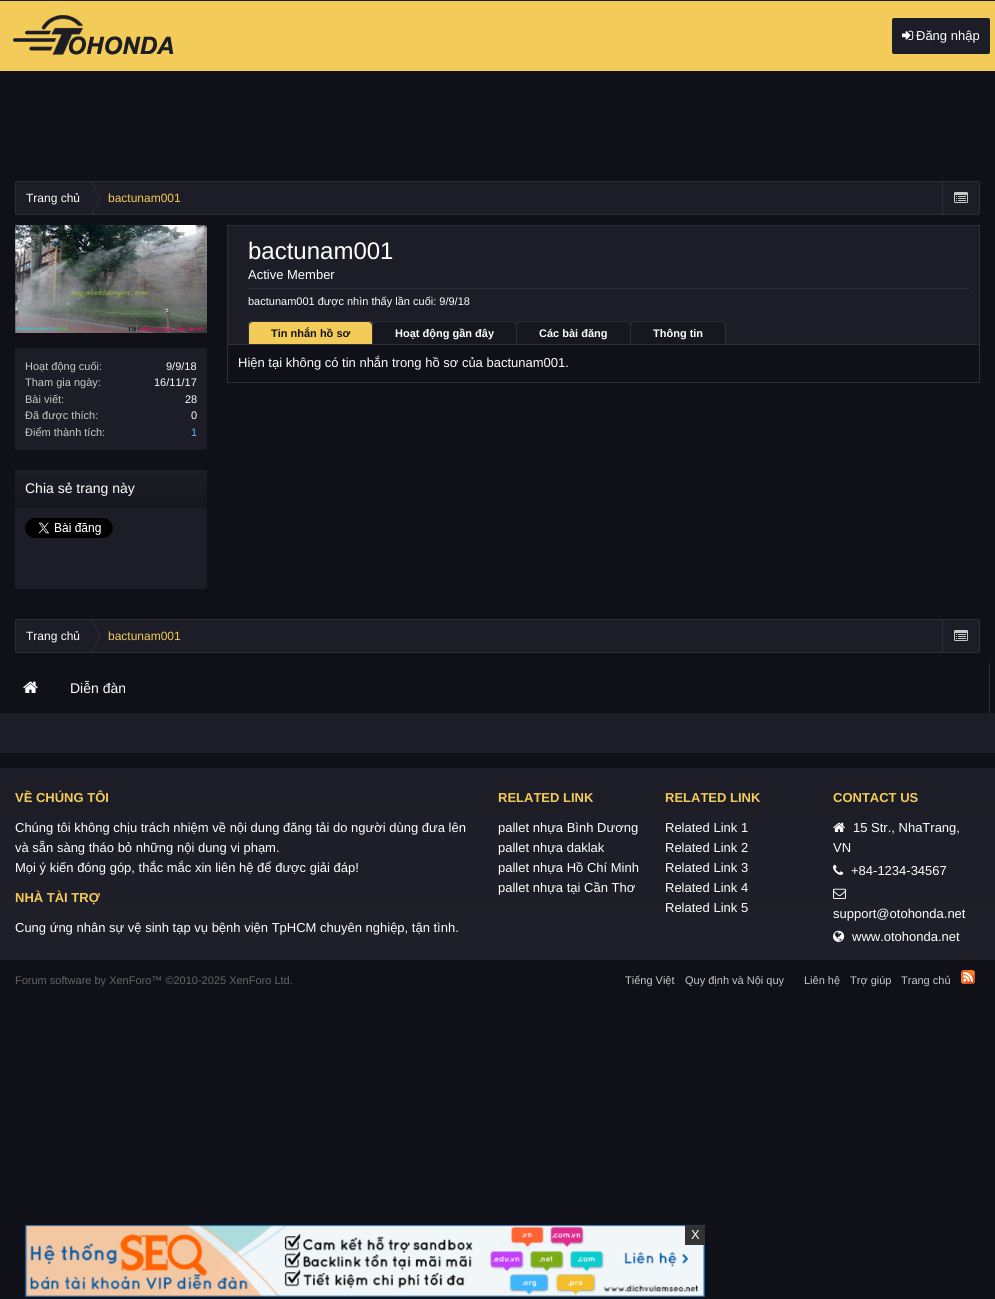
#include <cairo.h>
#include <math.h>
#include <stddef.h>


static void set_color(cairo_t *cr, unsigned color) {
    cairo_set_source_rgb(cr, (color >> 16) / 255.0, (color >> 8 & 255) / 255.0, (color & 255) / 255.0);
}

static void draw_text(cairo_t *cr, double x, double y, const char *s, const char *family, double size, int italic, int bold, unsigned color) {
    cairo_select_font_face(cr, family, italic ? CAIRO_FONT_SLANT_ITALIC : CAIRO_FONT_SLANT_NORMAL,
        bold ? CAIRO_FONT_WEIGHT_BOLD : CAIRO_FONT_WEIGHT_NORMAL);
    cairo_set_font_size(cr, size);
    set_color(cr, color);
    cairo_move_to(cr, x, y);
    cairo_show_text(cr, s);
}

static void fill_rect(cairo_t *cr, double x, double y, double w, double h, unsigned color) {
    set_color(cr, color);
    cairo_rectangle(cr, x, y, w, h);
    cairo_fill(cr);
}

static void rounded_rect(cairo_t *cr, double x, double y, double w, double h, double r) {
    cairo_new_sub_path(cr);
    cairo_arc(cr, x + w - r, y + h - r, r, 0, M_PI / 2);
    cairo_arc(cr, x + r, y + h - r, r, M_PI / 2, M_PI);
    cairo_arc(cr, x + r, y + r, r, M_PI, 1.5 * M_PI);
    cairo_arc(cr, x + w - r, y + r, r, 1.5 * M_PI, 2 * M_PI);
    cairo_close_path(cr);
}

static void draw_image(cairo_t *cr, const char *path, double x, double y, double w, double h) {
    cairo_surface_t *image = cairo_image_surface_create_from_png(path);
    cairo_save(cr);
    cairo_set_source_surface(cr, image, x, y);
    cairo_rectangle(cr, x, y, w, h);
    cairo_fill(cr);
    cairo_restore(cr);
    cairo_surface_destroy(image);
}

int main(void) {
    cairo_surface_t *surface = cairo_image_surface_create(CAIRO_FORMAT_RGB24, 995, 1299);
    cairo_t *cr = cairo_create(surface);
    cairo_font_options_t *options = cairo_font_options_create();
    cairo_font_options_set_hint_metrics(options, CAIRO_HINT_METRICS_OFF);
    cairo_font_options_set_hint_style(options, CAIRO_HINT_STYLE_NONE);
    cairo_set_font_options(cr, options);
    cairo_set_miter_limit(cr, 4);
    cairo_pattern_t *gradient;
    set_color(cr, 0x101018);
    cairo_paint(cr);
    fill_rect(cr, 0, 0, 995, 1, 0x1D1D27);
    fill_rect(cr, 0, 1, 995, 70, 0xF3CB59);
    draw_image(cr, "assets/img1.png", 13, 15, 161, 40);
    set_color(cr, 0x1D1D27);
    rounded_rect(cr, 892, 18, 98, 36, 2);
    cairo_fill(cr);
    draw_image(cr, "assets/img2.png", 902, 30, 12, 10);
    draw_text(cr, 916, 40, "Đăng nhập", "Liberation Sans", 13, 0, 0, 0xFFFFFF);
    draw_image(cr, "assets/img3.png", 23, 681, 15, 12);
    draw_text(cr, 70, 693, "Diễn đàn", "Liberation Sans", 14, 0, 0, 0xFFFFFF);
    fill_rect(cr, 0, 713, 995, 40, 0x1D1D27);
    fill_rect(cr, 989, 663, 1, 50, 0x2E2E37);
    set_color(cr, 0x1D1D27);
    rounded_rect(cr, 15, 181, 965, 34, 2);
    cairo_fill(cr);
    set_color(cr, 0x2E2E37);
    cairo_set_fill_rule(cr, CAIRO_FILL_RULE_EVEN_ODD);
    cairo_new_path(cr);
    cairo_move_to(cr, 17, 181);
    cairo_curve_to(cr, 16, 181, 15, 182, 15, 183);
    cairo_line_to(cr, 15, 213);
    cairo_curve_to(cr, 15, 214, 16, 215, 17, 215);
    cairo_line_to(cr, 978, 215);
    cairo_curve_to(cr, 979, 215, 980, 214, 980, 213);
    cairo_line_to(cr, 980, 183);
    cairo_curve_to(cr, 980, 182, 979, 181, 978, 181);
    cairo_close_path(cr);
    cairo_move_to(cr, 16, 182);
    cairo_line_to(cr, 16, 214);
    cairo_line_to(cr, 979, 214);
    cairo_line_to(cr, 979, 182);
    cairo_close_path(cr);
    cairo_fill(cr);
    draw_text(cr, 26, 202, "Trang chủ", "Liberation Sans", 12, 0, 0, 0xFFFFFF);
    set_color(cr, 0x2E2E37);
    cairo_set_fill_rule(cr, CAIRO_FILL_RULE_WINDING);
    cairo_new_path(cr);
    cairo_move_to(cr, 91.5, 181);
    cairo_line_to(cr, 101, 198);
    cairo_line_to(cr, 91.5, 215);
    cairo_line_to(cr, 91, 215);
    cairo_line_to(cr, 91, 181);
    cairo_close_path(cr);
    cairo_fill(cr);
    set_color(cr, 0x1D1D27);
    cairo_new_path(cr);
    cairo_move_to(cr, 90.5, 181);
    cairo_line_to(cr, 100, 198);
    cairo_line_to(cr, 90.5, 215);
    cairo_line_to(cr, 90, 215);
    cairo_line_to(cr, 90, 181);
    cairo_close_path(cr);
    cairo_fill(cr);
    draw_text(cr, 108, 202, "bactunam001", "Liberation Sans", 12, 0, 0, 0xF3CB59);
    fill_rect(cr, 942, 182, 1, 32, 0x2E2E37);
    draw_image(cr, "assets/img4.png", 954, 192, 14, 11);
    fill_rect(cr, 227, 225, 1, 158, 0x2E2E37);
    fill_rect(cr, 228, 225, 752, 1, 0x2E2E37);
    fill_rect(cr, 979, 225, 1, 158, 0x2E2E37);
    fill_rect(cr, 228, 226, 751, 118, 0x1D1D27);
    draw_text(cr, 248, 259, "bactunam001", "Liberation Sans", 24, 0, 0, 0xFFFFFF);
    draw_text(cr, 248, 279, "Active Member", "Liberation Sans", 13, 0, 0, 0xFFFFFF);
    fill_rect(cr, 248, 288, 721, 1, 0x2E2E37);
    draw_text(cr, 248, 305, "bactunam001 được nhìn thấy lần cuối: 9/9/18", "Liberation Sans", 11, 0, 0, 0xFFFFFF);
    fill_rect(cr, 228, 344, 751, 1, 0x2E2E37);
    set_color(cr, 0xF3CB59);
    cairo_new_path(cr);
    cairo_move_to(cr, 253, 321);
    cairo_line_to(cr, 368, 321);
    cairo_curve_to(cr, 371, 321, 373, 323, 373, 326);
    cairo_line_to(cr, 373, 344);
    cairo_line_to(cr, 248, 344);
    cairo_line_to(cr, 248, 326);
    cairo_curve_to(cr, 248, 323, 250, 321, 253, 321);
    cairo_close_path(cr);
    cairo_fill(cr);
    set_color(cr, 0x2E2E37);
    cairo_set_fill_rule(cr, CAIRO_FILL_RULE_EVEN_ODD);
    cairo_new_path(cr);
    cairo_move_to(cr, 253, 321);
    cairo_line_to(cr, 368, 321);
    cairo_curve_to(cr, 371, 321, 373, 323, 373, 326);
    cairo_line_to(cr, 373, 344);
    cairo_line_to(cr, 248, 344);
    cairo_line_to(cr, 248, 326);
    cairo_curve_to(cr, 248, 323, 250, 321, 253, 321);
    cairo_close_path(cr);
    cairo_move_to(cr, 253, 322);
    cairo_line_to(cr, 368, 322);
    cairo_curve_to(cr, 370, 322, 372, 324, 372, 326);
    cairo_line_to(cr, 372, 344);
    cairo_line_to(cr, 249, 344);
    cairo_line_to(cr, 249, 326);
    cairo_curve_to(cr, 249, 324, 251, 322, 253, 322);
    cairo_close_path(cr);
    cairo_fill(cr);
    draw_text(cr, 271, 337, "Tin nhắn hồ sơ", "Liberation Sans", 11, 0, 1, 0x141414);
    cairo_set_source_rgba(cr, 0, 0, 0, 0.2);
    cairo_new_path(cr);
    cairo_move_to(cr, 377, 321.5);
    cairo_line_to(cr, 512, 321.5);
    cairo_curve_to(cr, 514.5, 321.5, 516.5, 323.5, 516.5, 326);
    cairo_line_to(cr, 516.5, 344.5);
    cairo_line_to(cr, 372.5, 344.5);
    cairo_line_to(cr, 372.5, 326);
    cairo_curve_to(cr, 372.5, 323.5, 374.5, 321.5, 377, 321.5);
    cairo_close_path(cr);
    cairo_fill_preserve(cr);
    set_color(cr, 0x2E2E37);
    cairo_set_line_width(cr, 1);
    cairo_stroke(cr);
    draw_text(cr, 395, 337, "Hoạt động gần đây", "Liberation Sans", 11, 0, 1, 0xFFFFFF);
    cairo_set_source_rgba(cr, 0, 0, 0, 0.2);
    cairo_new_path(cr);
    cairo_move_to(cr, 521, 321.5);
    cairo_line_to(cr, 626, 321.5);
    cairo_curve_to(cr, 628.5, 321.5, 630.5, 323.5, 630.5, 326);
    cairo_line_to(cr, 630.5, 344.5);
    cairo_line_to(cr, 516.5, 344.5);
    cairo_line_to(cr, 516.5, 326);
    cairo_curve_to(cr, 516.5, 323.5, 518.5, 321.5, 521, 321.5);
    cairo_close_path(cr);
    cairo_fill_preserve(cr);
    set_color(cr, 0x2E2E37);
    cairo_stroke(cr);
    draw_text(cr, 539, 337, "Các bài đăng", "Liberation Sans", 11, 0, 1, 0xFFFFFF);
    cairo_set_source_rgba(cr, 0, 0, 0, 0.2);
    cairo_new_path(cr);
    cairo_move_to(cr, 635, 321.5);
    cairo_line_to(cr, 721, 321.5);
    cairo_curve_to(cr, 723.5, 321.5, 725.5, 323.5, 725.5, 326);
    cairo_line_to(cr, 725.5, 344.5);
    cairo_line_to(cr, 630.5, 344.5);
    cairo_line_to(cr, 630.5, 326);
    cairo_curve_to(cr, 630.5, 323.5, 632.5, 321.5, 635, 321.5);
    cairo_close_path(cr);
    cairo_fill_preserve(cr);
    set_color(cr, 0x2E2E37);
    cairo_stroke(cr);
    draw_text(cr, 653, 337, "Thông tin", "Liberation Sans", 11, 0, 1, 0xFFFFFF);
    fill_rect(cr, 228, 382, 752, 1, 0x2E2E37);
    draw_text(cr, 238, 367, "Hiện tại không có tin nhắn trong hồ sơ của bactunam001.", "Liberation Sans", 13, 0, 0, 0xFFFFFF);
    draw_image(cr, "assets/img5.png", 15, 225, 192, 108);
    set_color(cr, 0x1D1D27);
    rounded_rect(cr, 15, 348, 192, 102, 2);
    cairo_fill(cr);
    draw_text(cr, 25, 370, "Hoạt động cuối:", "Liberation Sans", 11, 0, 0, 0xC8C8C8);
    draw_text(cr, 166, 370, "9/9/18", "Liberation Sans", 11, 0, 0, 0xFFFFFF);
    draw_text(cr, 25, 386, "Tham gia ngày:", "Liberation Sans", 11, 0, 0, 0xC8C8C8);
    draw_text(cr, 154, 386, "16/11/17", "Liberation Sans", 11, 0, 0, 0xFFFFFF);
    draw_text(cr, 25, 403, "Bài viết:", "Liberation Sans", 11, 0, 0, 0xC8C8C8);
    draw_text(cr, 185, 403, "28", "Liberation Sans", 11, 0, 0, 0xFFFFFF);
    draw_text(cr, 25, 419, "Đã được thích:", "Liberation Sans", 11, 0, 0, 0xC8C8C8);
    draw_text(cr, 191, 419, "0", "Liberation Sans", 11, 0, 0, 0xFFFFFF);
    draw_text(cr, 25, 436, "Điểm thành tích:", "Liberation Sans", 11, 0, 0, 0xC8C8C8);
    draw_text(cr, 191, 436, "1", "Liberation Sans", 11, 0, 0, 0x61B1EC);
    set_color(cr, 0x1D1D27);
    rounded_rect(cr, 15, 470, 192, 119, 2);
    cairo_fill(cr);
    gradient = cairo_pattern_create_linear(111, 470, 111, 508);
    cairo_pattern_add_color_stop_rgba(gradient, 0, 0.114, 0.114, 0.153, 1);
    cairo_pattern_add_color_stop_rgba(gradient, 1, 0.09, 0.09, 0.122, 1);
    cairo_set_source(cr, gradient);
    cairo_pattern_destroy(gradient);
    cairo_rectangle(cr, 15, 470, 192, 38);
    cairo_fill(cr);
    draw_text(cr, 25, 493, "Chia sẻ trang này", "Liberation Sans", 14, 0, 0, 0xFFFFFF);
    draw_image(cr, "assets/img6.png", 25, 518, 88, 20);
    set_color(cr, 0x1D1D27);
    rounded_rect(cr, 15, 619, 965, 34, 2);
    cairo_fill(cr);
    set_color(cr, 0x2E2E37);
    cairo_new_path(cr);
    cairo_move_to(cr, 17, 619);
    cairo_curve_to(cr, 16, 619, 15, 620, 15, 621);
    cairo_line_to(cr, 15, 651);
    cairo_curve_to(cr, 15, 652, 16, 653, 17, 653);
    cairo_line_to(cr, 978, 653);
    cairo_curve_to(cr, 979, 653, 980, 652, 980, 651);
    cairo_line_to(cr, 980, 621);
    cairo_curve_to(cr, 980, 620, 979, 619, 978, 619);
    cairo_close_path(cr);
    cairo_move_to(cr, 16, 620);
    cairo_line_to(cr, 16, 652);
    cairo_line_to(cr, 979, 652);
    cairo_line_to(cr, 979, 620);
    cairo_close_path(cr);
    cairo_fill(cr);
    draw_text(cr, 26, 640, "Trang chủ", "Liberation Sans", 12, 0, 0, 0xFFFFFF);
    set_color(cr, 0x2E2E37);
    cairo_set_fill_rule(cr, CAIRO_FILL_RULE_WINDING);
    cairo_new_path(cr);
    cairo_move_to(cr, 91.5, 619);
    cairo_line_to(cr, 101, 636);
    cairo_line_to(cr, 91.5, 653);
    cairo_line_to(cr, 91, 653);
    cairo_line_to(cr, 91, 619);
    cairo_close_path(cr);
    cairo_fill(cr);
    set_color(cr, 0x1D1D27);
    cairo_new_path(cr);
    cairo_move_to(cr, 90.5, 619);
    cairo_line_to(cr, 100, 636);
    cairo_line_to(cr, 90.5, 653);
    cairo_line_to(cr, 90, 653);
    cairo_line_to(cr, 90, 619);
    cairo_close_path(cr);
    cairo_fill(cr);
    draw_text(cr, 108, 640, "bactunam001", "Liberation Sans", 12, 0, 0, 0xF3CB59);
    fill_rect(cr, 942, 620, 1, 32, 0x2E2E37);
    draw_image(cr, "assets/img4.png", 954, 630, 14, 11);
    gradient = cairo_pattern_create_linear(498, 768, 498, 960);
    cairo_pattern_add_color_stop_rgba(gradient, 0, 0.114, 0.114, 0.153, 1);
    cairo_pattern_add_color_stop_rgba(gradient, 1, 0.122, 0.122, 0.161, 1);
    cairo_set_source(cr, gradient);
    cairo_pattern_destroy(gradient);
    cairo_rectangle(cr, 0, 768, 995, 192);
    cairo_fill(cr);
    draw_text(cr, 15, 802, "VỀ CHÚNG TÔI", "Liberation Sans", 13, 0, 1, 0xF3CB59);
    draw_text(cr, 15, 832, "Chúng tôi không chịu trách nhiệm về nội dung đăng tải do người dùng đưa lên", "Liberation Sans", 13, 0, 0, 0xFFFFFF);
    draw_text(cr, 15, 852, "và sẵn sàng tháo bỏ những nội dung vi phạm.", "Liberation Sans", 13, 0, 0, 0xFFFFFF);
    draw_text(cr, 15, 872, "Mọi ý kiến đóng góp, thắc mắc xin liên hệ để được giải đáp!", "Liberation Sans", 13, 0, 0, 0xFFFFFF);
    draw_text(cr, 15, 902, "NHÀ TÀI TRỢ", "Liberation Sans", 13, 0, 1, 0xF3CB59);
    draw_text(cr, 15, 932, "Cung ứng nhân sự vệ sinh tạp vụ bệnh viện TpHCM chuyên nghiệp, tận tình.", "Liberation Sans", 13, 0, 0, 0xFFFFFF);
    draw_text(cr, 498, 802, "RELATED LINK", "Liberation Sans", 13, 0, 1, 0xF3CB59);
    draw_text(cr, 498, 832, "pallet nhựa Bình Dương", "Liberation Sans", 13, 0, 0, 0xFFFFFF);
    draw_text(cr, 498, 852, "pallet nhựa daklak", "Liberation Sans", 13, 0, 0, 0xFFFFFF);
    draw_text(cr, 498, 872, "pallet nhựa Hồ Chí Minh", "Liberation Sans", 13, 0, 0, 0xFFFFFF);
    draw_text(cr, 498, 892, "pallet nhựa tại Cần Thơ", "Liberation Sans", 13, 0, 0, 0xFFFFFF);
    draw_text(cr, 665, 802, "RELATED LINK", "Liberation Sans", 13, 0, 1, 0xF3CB59);
    draw_text(cr, 665, 832, "Related Link 1", "Liberation Sans", 13, 0, 0, 0xFFFFFF);
    draw_text(cr, 665, 852, "Related Link 2", "Liberation Sans", 13, 0, 0, 0xFFFFFF);
    draw_text(cr, 665, 872, "Related Link 3", "Liberation Sans", 13, 0, 0, 0xFFFFFF);
    draw_text(cr, 665, 892, "Related Link 4", "Liberation Sans", 13, 0, 0, 0xFFFFFF);
    draw_text(cr, 665, 912, "Related Link 5", "Liberation Sans", 13, 0, 0, 0xFFFFFF);
    draw_text(cr, 833, 802, "CONTACT US", "Liberation Sans", 13, 0, 1, 0xF3CB59);
    draw_image(cr, "assets/img7.png", 833, 822, 12, 10);
    draw_text(cr, 853, 832, "15 Str., NhaTrang,", "Liberation Sans", 13, 0, 0, 0xFFFFFF);
    draw_text(cr, 833, 852, "VN", "Liberation Sans", 13, 0, 0, 0xFFFFFF);
    draw_image(cr, "assets/img8.png", 833, 864, 11, 11);
    draw_text(cr, 851, 875, "+84-1234-34567", "Liberation Sans", 13, 0, 0, 0xFFFFFF);
    draw_image(cr, "assets/img9.png", 833, 888, 13, 11);
    draw_text(cr, 833, 918, "support@otohonda.net", "Liberation Sans", 13, 0, 0, 0xFFFFFF);
    draw_image(cr, "assets/img10.png", 833, 930, 12, 12);
    draw_text(cr, 852, 941, "www.otohonda.net", "Liberation Sans", 13, 0, 0, 0xFFFFFF);
    draw_text(cr, 15, 984, "Forum software by XenForo™ ©2010-2025 XenForo Ltd.", "Liberation Sans", 11, 0, 0, 0x646464);
    draw_text(cr, 625, 984, "Tiếng Việt", "Liberation Sans", 11, 0, 0, 0xC8C8C8);
    draw_text(cr, 685, 984, "Quy định và Nội quy", "Liberation Sans", 11, 0, 0, 0xC8C8C8);
    draw_text(cr, 804, 984, "Liên hệ", "Liberation Sans", 11, 0, 0, 0xC8C8C8);
    draw_text(cr, 850, 984, "Trợ giúp", "Liberation Sans", 11, 0, 0, 0xC8C8C8);
    draw_text(cr, 901, 984, "Trang chủ", "Liberation Sans", 11, 0, 0, 0xC8C8C8);
    draw_image(cr, "assets/img11.png", 961, 970, 14, 14);
    draw_image(cr, "assets/img12.png", 25, 1224, 680, 73);
    fill_rect(cr, 685, 1225, 20, 20, 0x333333);
    draw_text(cr, 691, 1239, "X", "Liberation Sans", 13, 0, 0, 0xFFFFFF);
    cairo_surface_write_to_png(surface, "output.png");
    cairo_font_options_destroy(options);
    cairo_destroy(cr);
    cairo_surface_destroy(surface);
    return 0;
}
